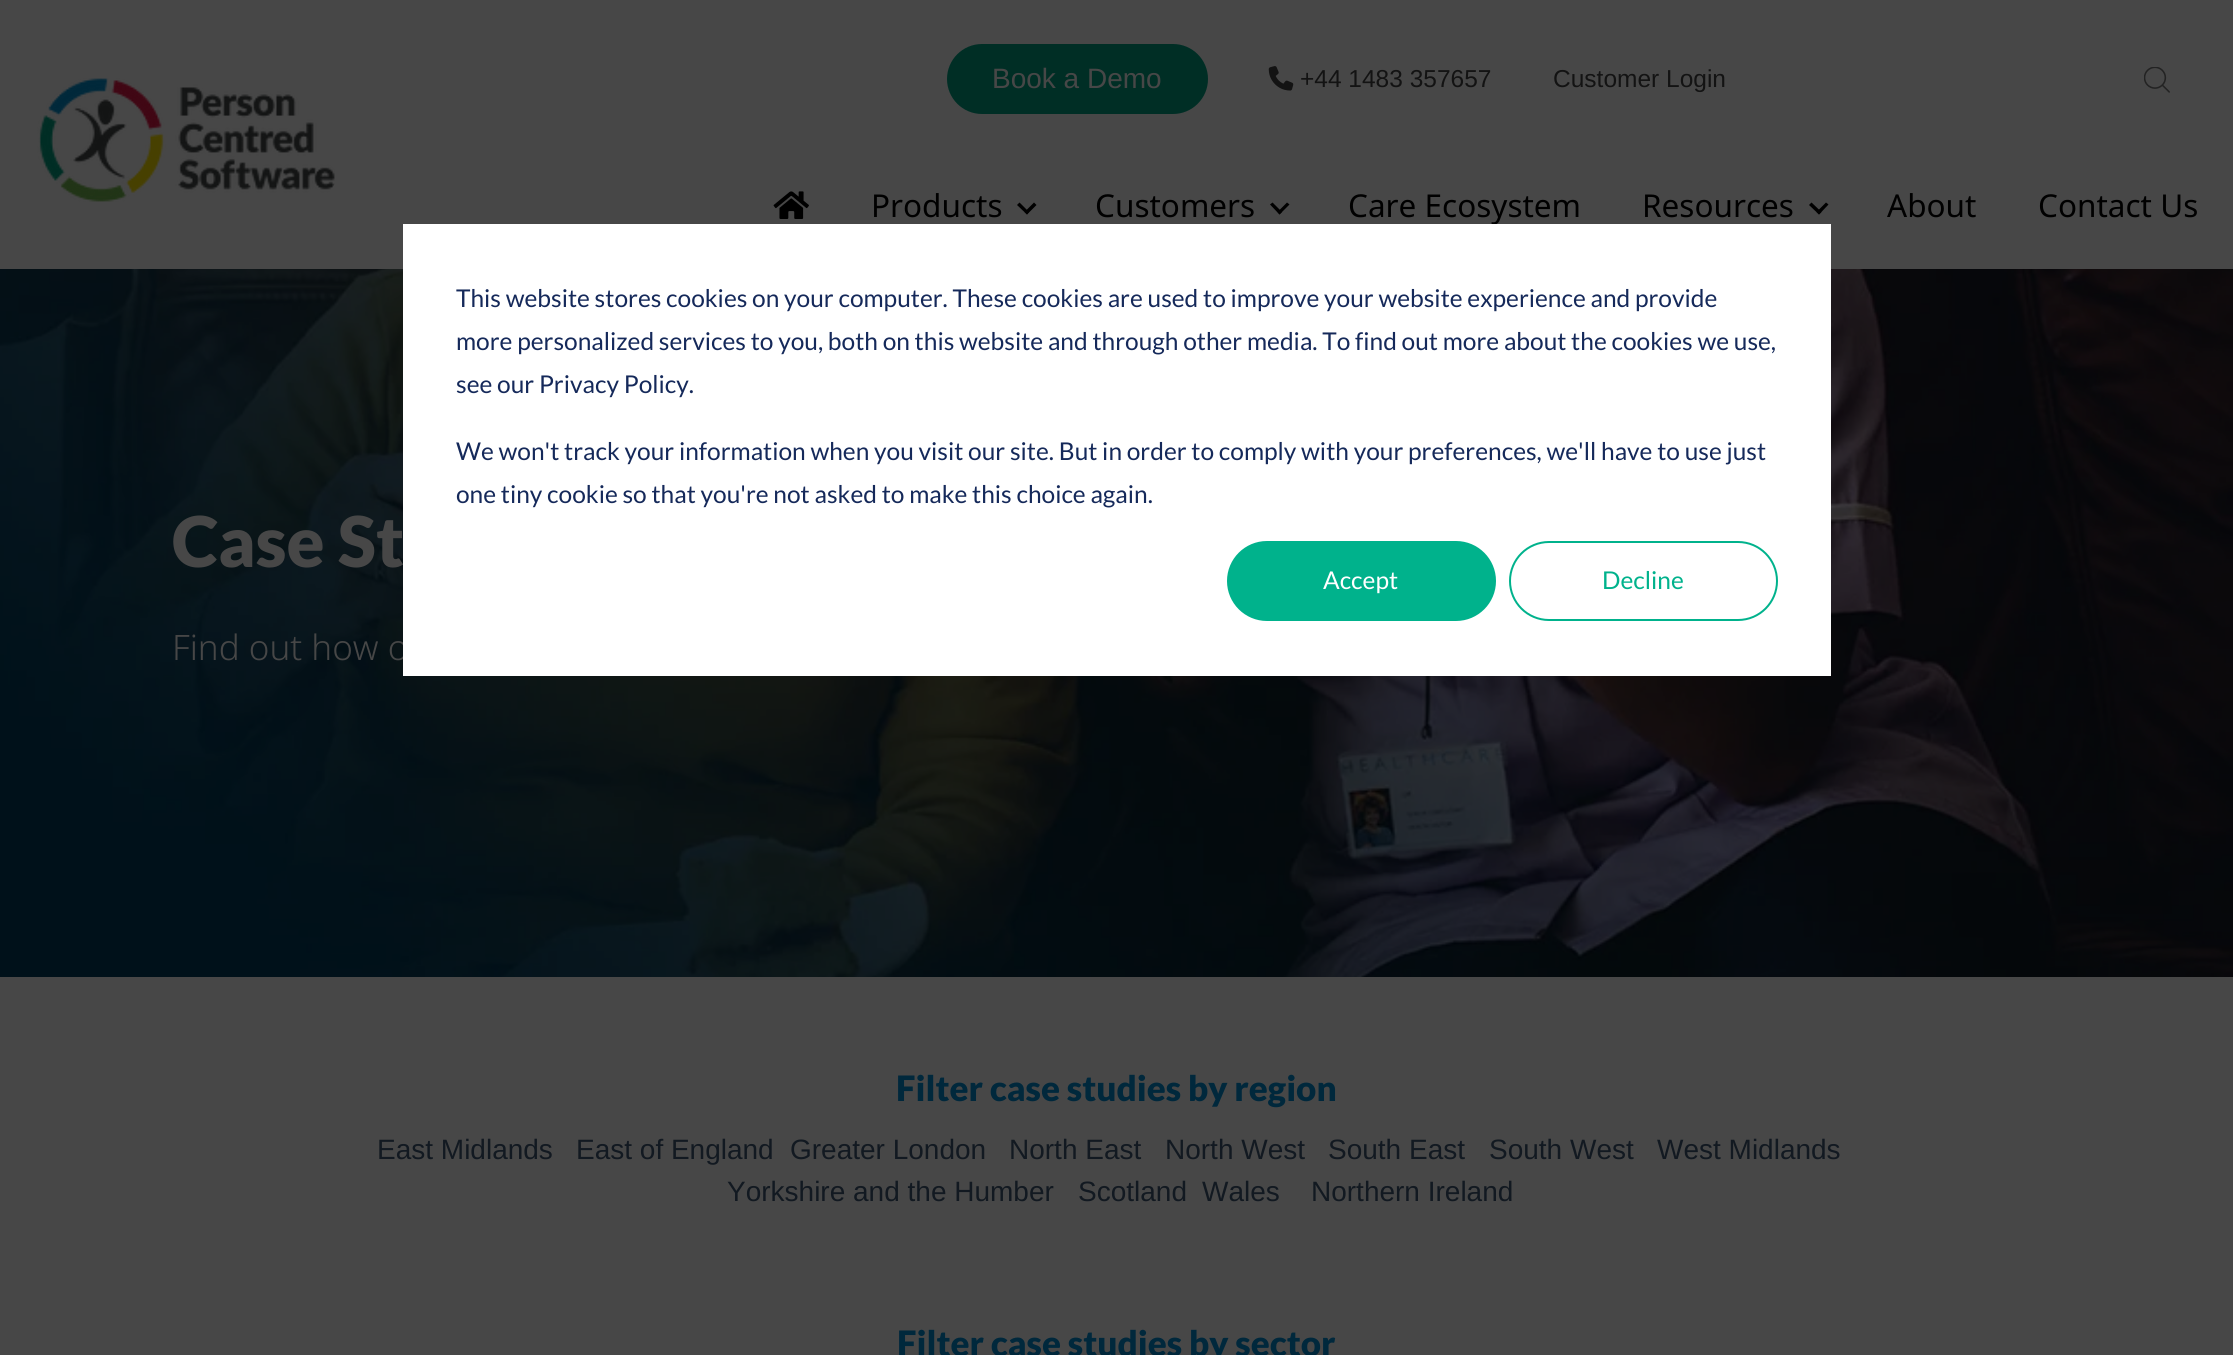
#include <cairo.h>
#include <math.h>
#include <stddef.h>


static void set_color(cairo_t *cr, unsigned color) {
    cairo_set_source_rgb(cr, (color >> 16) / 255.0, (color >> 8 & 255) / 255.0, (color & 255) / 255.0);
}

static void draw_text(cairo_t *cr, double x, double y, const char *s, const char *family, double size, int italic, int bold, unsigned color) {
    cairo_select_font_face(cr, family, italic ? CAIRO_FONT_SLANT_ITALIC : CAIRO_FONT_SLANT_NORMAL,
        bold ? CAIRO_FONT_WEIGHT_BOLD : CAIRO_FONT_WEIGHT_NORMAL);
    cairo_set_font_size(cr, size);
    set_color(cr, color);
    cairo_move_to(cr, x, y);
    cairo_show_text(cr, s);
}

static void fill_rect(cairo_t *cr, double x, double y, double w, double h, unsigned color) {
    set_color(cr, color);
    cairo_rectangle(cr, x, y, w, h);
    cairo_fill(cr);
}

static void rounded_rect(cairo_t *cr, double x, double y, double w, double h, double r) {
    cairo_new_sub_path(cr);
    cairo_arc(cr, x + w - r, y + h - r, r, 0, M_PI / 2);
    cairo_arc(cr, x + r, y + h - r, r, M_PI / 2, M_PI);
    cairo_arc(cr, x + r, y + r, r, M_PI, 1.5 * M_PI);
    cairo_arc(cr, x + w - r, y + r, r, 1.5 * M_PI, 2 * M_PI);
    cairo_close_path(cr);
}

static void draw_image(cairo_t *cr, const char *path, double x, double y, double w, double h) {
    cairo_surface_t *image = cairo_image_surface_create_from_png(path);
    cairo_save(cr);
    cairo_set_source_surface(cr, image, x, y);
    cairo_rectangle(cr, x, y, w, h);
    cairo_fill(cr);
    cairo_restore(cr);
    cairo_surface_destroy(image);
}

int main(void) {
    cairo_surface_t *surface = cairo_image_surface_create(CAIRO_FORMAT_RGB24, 2233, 1355);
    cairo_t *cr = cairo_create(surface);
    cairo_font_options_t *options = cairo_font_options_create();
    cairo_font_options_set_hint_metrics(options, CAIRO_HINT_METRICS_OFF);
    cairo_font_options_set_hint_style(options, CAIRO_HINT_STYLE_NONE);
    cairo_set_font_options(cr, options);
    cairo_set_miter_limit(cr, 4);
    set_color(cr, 0x474747);
    cairo_paint(cr);
    draw_image(cr, "assets/img1.png", 37, 78, 298, 124);
    set_color(cr, 0x002E25);
    rounded_rect(cr, 947, 44, 261, 70, 35);
    cairo_fill(cr);
    draw_text(cr, 992, 88, "Book a Demo", "Liberation Sans", 28, 0, 0, 0x474747);
    draw_image(cr, "assets/img2.png", 1268, 66, 26, 25);
    draw_text(cr, 1300, 87, "+44 1483 357657", "Liberation Sans", 24.5, 0, 0, 0x131313);
    draw_text(cr, 1553, 87, "Customer Login", "Liberation Sans", 24.5, 0, 0, 0x131313);
    draw_image(cr, "assets/img3.png", 2144, 67, 26, 26);
    draw_image(cr, "assets/img4.png", 773, 191, 36, 28);
    draw_text(cr, 871, 217, "Products", "Noto Sans", 31.5, 0, 0, 0x000000);
    cairo_new_path(cr);
    cairo_move_to(cr, 1024.5, 212);
    cairo_line_to(cr, 1034, 202.5);
    cairo_line_to(cr, 1036.5, 205);
    cairo_line_to(cr, 1027, 214.5);
    cairo_close_path(cr);
    cairo_fill(cr);
    cairo_new_path(cr);
    cairo_move_to(cr, 1017, 205);
    cairo_line_to(cr, 1019.5, 202.5);
    cairo_line_to(cr, 1029, 212);
    cairo_line_to(cr, 1027, 214.5);
    cairo_close_path(cr);
    cairo_fill(cr);
    draw_text(cr, 1095, 217, "Customers", "Noto Sans", 31.5, 0, 0, 0x000000);
    cairo_new_path(cr);
    cairo_move_to(cr, 1277.5, 212);
    cairo_line_to(cr, 1287, 202.5);
    cairo_line_to(cr, 1289.5, 204.5);
    cairo_line_to(cr, 1279.5, 214.5);
    cairo_close_path(cr);
    cairo_fill(cr);
    cairo_new_path(cr);
    cairo_move_to(cr, 1270, 204.5);
    cairo_line_to(cr, 1272.5, 202.5);
    cairo_line_to(cr, 1282, 212);
    cairo_line_to(cr, 1279.5, 214.5);
    cairo_close_path(cr);
    cairo_fill(cr);
    draw_text(cr, 1348, 217, "Care Ecosystem", "Noto Sans", 31.5, 0, 0, 0x000000);
    draw_text(cr, 1642, 217, "Resources", "Noto Sans", 31.5, 0, 0, 0x000000);
    cairo_new_path(cr);
    cairo_move_to(cr, 1816.5, 212);
    cairo_line_to(cr, 1826, 202.5);
    cairo_line_to(cr, 1828.5, 204.5);
    cairo_line_to(cr, 1819, 214.5);
    cairo_close_path(cr);
    cairo_fill(cr);
    cairo_new_path(cr);
    cairo_move_to(cr, 1809, 205);
    cairo_line_to(cr, 1811.5, 202.5);
    cairo_line_to(cr, 1821.5, 212);
    cairo_line_to(cr, 1819, 214.5);
    cairo_close_path(cr);
    cairo_fill(cr);
    draw_text(cr, 1887, 217, "About", "Noto Sans", 31.5, 0, 0, 0x000000);
    draw_text(cr, 2038, 217, "Contact Us", "Noto Sans", 31.5, 0, 0, 0x000000);
    draw_image(cr, "assets/img5.png", 0, 269, 2233, 708);
    draw_text(cr, 172, 660, "Find out how o", "Noto Sans Light", 35, 0, 0, 0x474747);
    fill_rect(cr, 403, 224, 1428, 452, 0xFFFFFF);
    draw_text(cr, 456, 307, "This website stores cookies on your computer. These cookies are used to improve your website experience and provide", "Lato", 24.5, 0, 0, 0x15295A);
    draw_text(cr, 456, 350, "more personalized services to you, both on this website and through other media. To find out more about the cookies we use,", "Lato", 24.5, 0, 0, 0x15295A);
    draw_text(cr, 456, 393, "see our Privacy Policy.", "Lato", 24.5, 0, 0, 0x15295A);
    draw_text(cr, 456, 460, "We won't track your information when you visit our site. But in order to comply with your preferences, we'll have to use just", "Lato", 24.5, 0, 0, 0x15295A);
    draw_text(cr, 456, 503, "one tiny cookie so that you're not asked to make this choice again.", "Lato", 24.5, 0, 0, 0x15295A);
    set_color(cr, 0x00B28C);
    rounded_rect(cr, 1228, 542, 267, 78, 39);
    cairo_fill_preserve(cr);
    cairo_stroke(cr);
    draw_text(cr, 1323, 589, "Accept", "Lato", 24.5, 0, 0, 0xFFFFFF);
    rounded_rect(cr, 1510, 542, 267, 78, 39);
    set_color(cr, 0x00B28C);
    cairo_stroke(cr);
    draw_text(cr, 1602, 589, "Decline", "Lato", 24.5, 0, 0, 0x00B28C);
    draw_text(cr, 172, 567, "Case St", "Lato Black", 70, 0, 0, 0x474747);
    draw_text(cr, 896, 1101, "Filter case studies by region", "Lato Black", 35, 0, 0, 0x00283C);
    draw_text(cr, 377, 1159, "East Midlands", "Liberation Sans", 28, 0, 0, 0x121921);
    draw_text(cr, 576, 1159, "East of England", "Liberation Sans", 28, 0, 0, 0x121921);
    draw_text(cr, 790, 1159, "Greater London", "Liberation Sans", 28, 0, 0, 0x121921);
    draw_text(cr, 1009, 1159, "North East", "Liberation Sans", 28, 0, 0, 0x121921);
    draw_text(cr, 1165, 1159, "North West", "Liberation Sans", 28, 0, 0, 0x121921);
    draw_text(cr, 1328, 1159, "South East", "Liberation Sans", 28, 0, 0, 0x121921);
    draw_text(cr, 1489, 1159, "South West", "Liberation Sans", 28, 0, 0, 0x121921);
    draw_text(cr, 1657, 1159, "West Midlands", "Liberation Sans", 28, 0, 0, 0x121921);
    draw_text(cr, 727, 1201, "Yorkshire and the Humber", "Liberation Sans", 28, 0, 0, 0x121921);
    draw_text(cr, 1078, 1201, "Scotland", "Liberation Sans", 28, 0, 0, 0x121921);
    draw_text(cr, 1202, 1201, "Wales", "Liberation Sans", 28, 0, 0, 0x121921);
    draw_text(cr, 1311, 1201, "Northern Ireland", "Liberation Sans", 28, 0, 0, 0x121921);
    draw_text(cr, 897, 1356, "Filter case studies by sector", "Lato Black", 35, 0, 0, 0x00283C);
    cairo_surface_write_to_png(surface, "output.png");
    cairo_font_options_destroy(options);
    cairo_destroy(cr);
    cairo_surface_destroy(surface);
    return 0;
}
